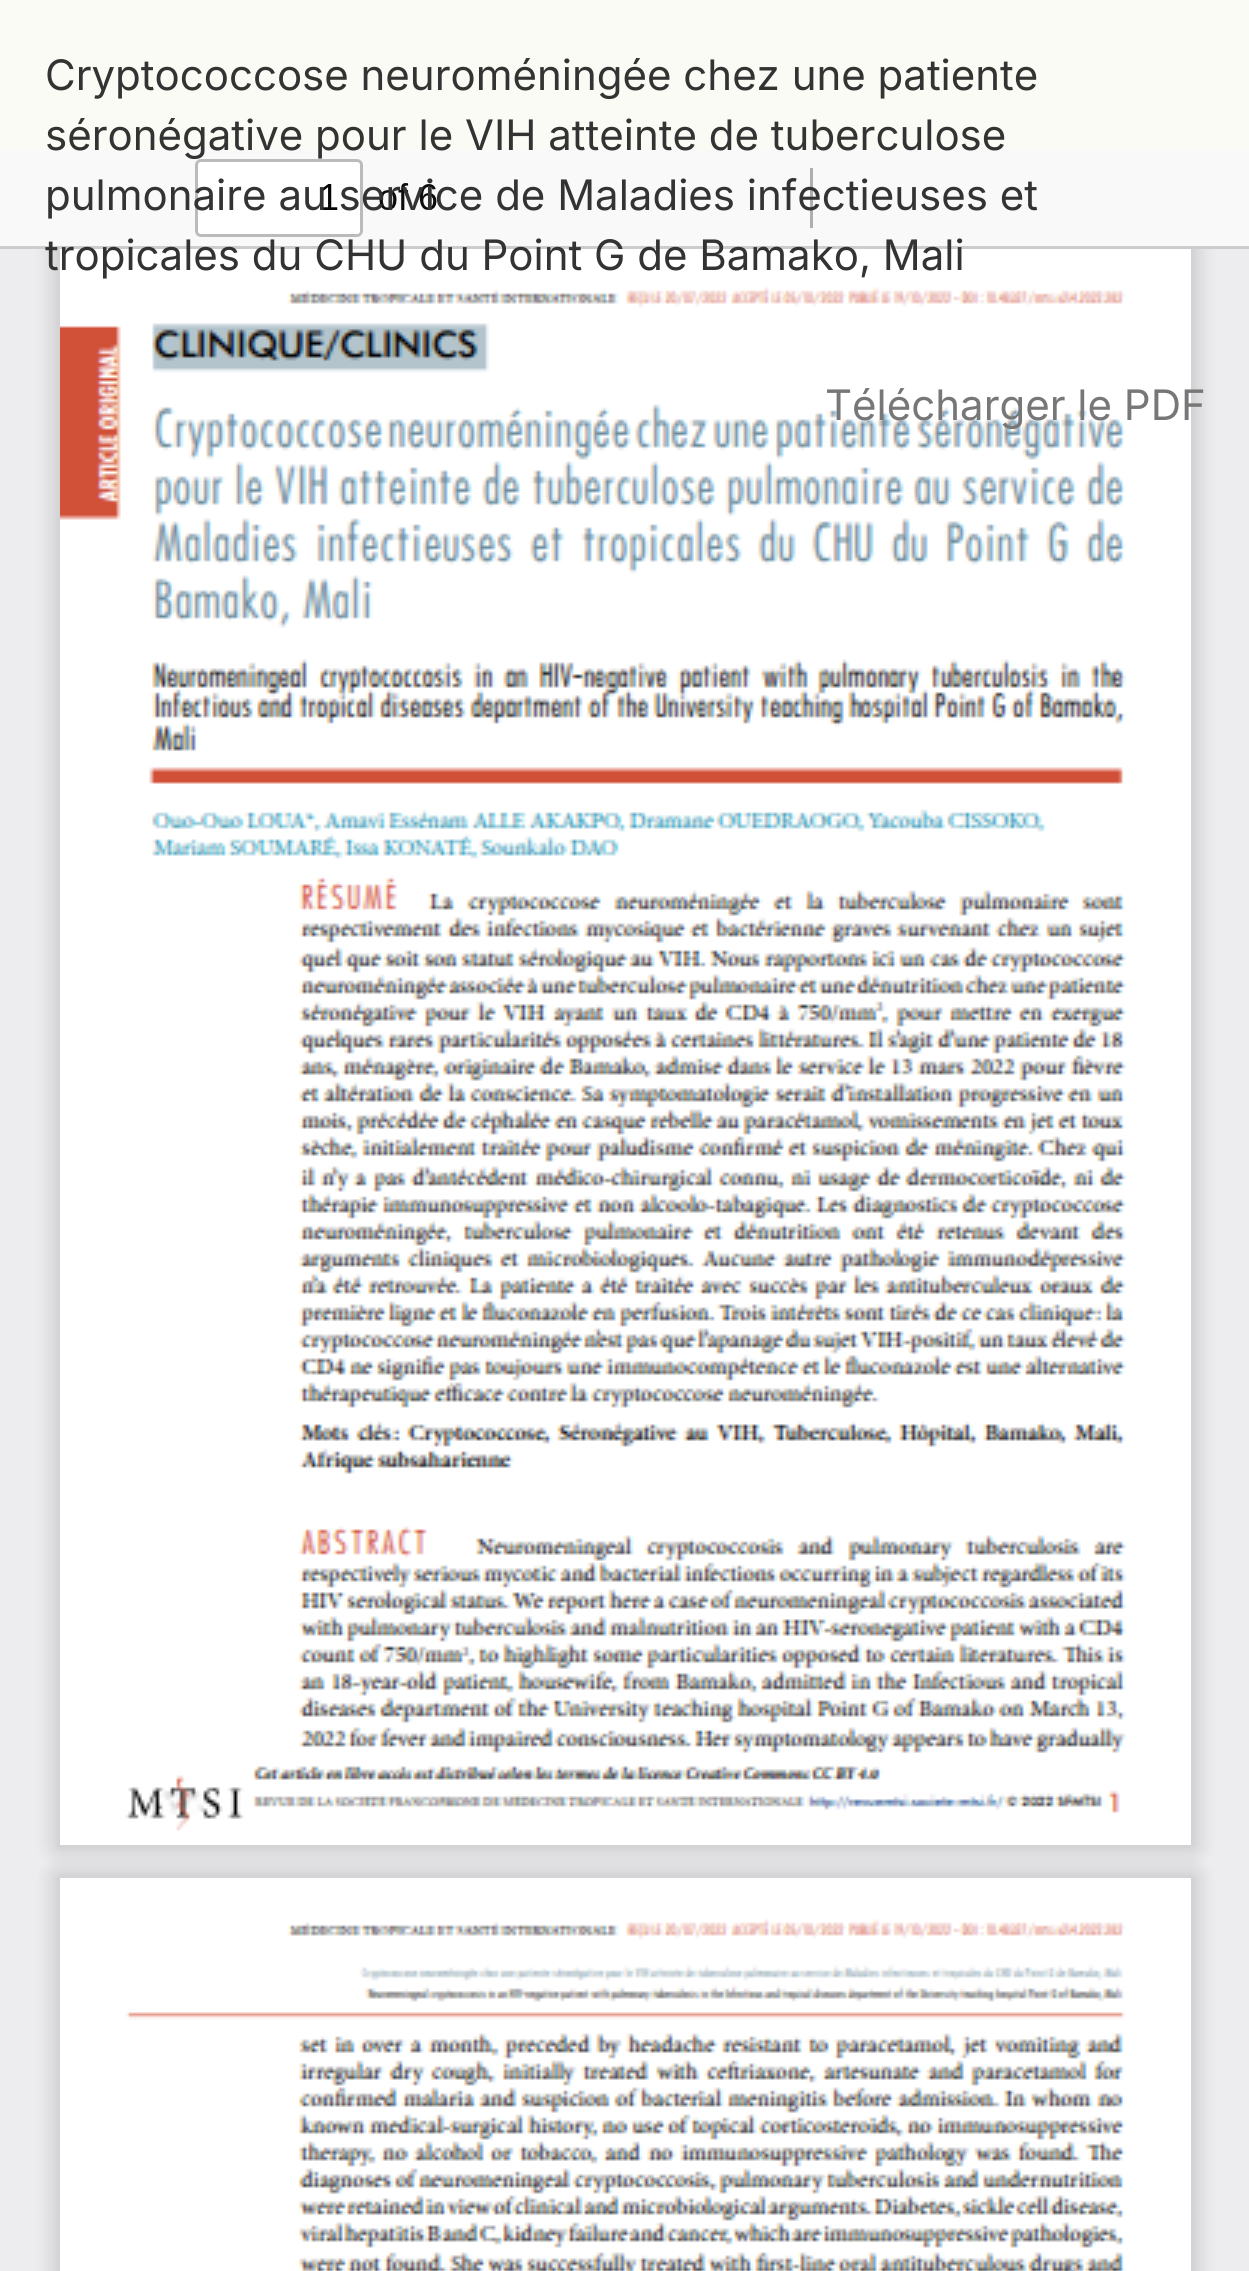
#include <cairo.h>
#include <math.h>
#include <stddef.h>


static void set_color(cairo_t *cr, unsigned color) {
    cairo_set_source_rgb(cr, (color >> 16) / 255.0, (color >> 8 & 255) / 255.0, (color & 255) / 255.0);
}

static void draw_text(cairo_t *cr, double x, double y, const char *s, const char *family, double size, int italic, int bold, unsigned color) {
    cairo_select_font_face(cr, family, italic ? CAIRO_FONT_SLANT_ITALIC : CAIRO_FONT_SLANT_NORMAL,
        bold ? CAIRO_FONT_WEIGHT_BOLD : CAIRO_FONT_WEIGHT_NORMAL);
    cairo_set_font_size(cr, size);
    set_color(cr, color);
    cairo_move_to(cr, x, y);
    cairo_show_text(cr, s);
}

static void draw_image(cairo_t *cr, const char *path, double x, double y, double w, double h) {
    cairo_surface_t *image = cairo_image_surface_create_from_png(path);
    cairo_save(cr);
    cairo_set_source_surface(cr, image, x, y);
    cairo_rectangle(cr, x, y, w, h);
    cairo_fill(cr);
    cairo_restore(cr);
    cairo_surface_destroy(image);
}

int main(void) {
    cairo_surface_t *surface = cairo_image_surface_create(CAIRO_FORMAT_RGB24, 1249, 2271);
    cairo_t *cr = cairo_create(surface);
    cairo_font_options_t *options = cairo_font_options_create();
    cairo_font_options_set_hint_metrics(options, CAIRO_HINT_METRICS_OFF);
    cairo_font_options_set_hint_style(options, CAIRO_HINT_STYLE_NONE);
    cairo_set_font_options(cr, options);
    cairo_set_miter_limit(cr, 4);
    set_color(cr, 0xFAFBF4);
    cairo_paint(cr);
    draw_text(cr, 45, 90, "Cryptococcose neuroméningée chez une patiente", "Inter", 42, 0, 0, 0x333333);
    draw_image(cr, "assets/img1.png", 0, 150, 1249, 2121);
    draw_text(cr, 45, 150, "séronégative pour le VIH atteinte de tuberculose", "Inter", 42, 0, 0, 0x333333);
    draw_text(cr, 45, 210, "pulmonaire au service de Maladies infectieuses et", "Inter", 42, 0, 0, 0x333333);
    draw_text(cr, 45, 270, "tropicales du CHU du Point G de Bamako, Mali", "Inter", 42, 0, 0, 0x333333);
    draw_text(cr, 825, 420, "Télécharger le PDF", "Inter", 42, 0, 0, 0x777777);
    cairo_surface_write_to_png(surface, "output.png");
    cairo_font_options_destroy(options);
    cairo_destroy(cr);
    cairo_surface_destroy(surface);
    return 0;
}
